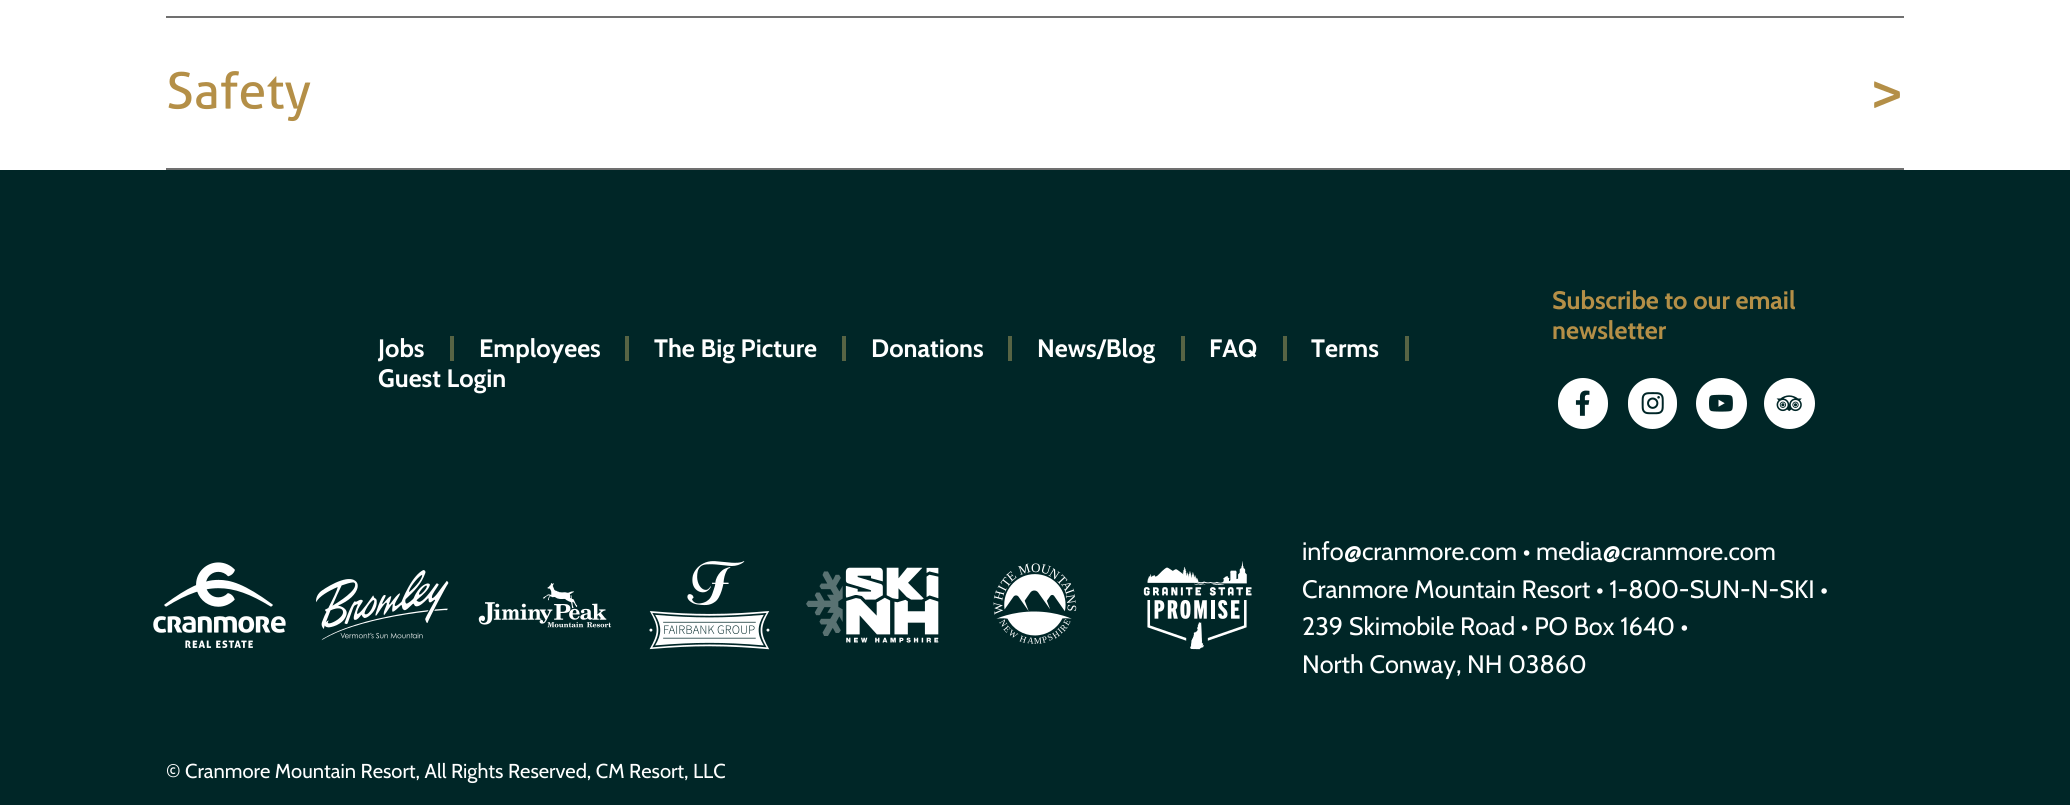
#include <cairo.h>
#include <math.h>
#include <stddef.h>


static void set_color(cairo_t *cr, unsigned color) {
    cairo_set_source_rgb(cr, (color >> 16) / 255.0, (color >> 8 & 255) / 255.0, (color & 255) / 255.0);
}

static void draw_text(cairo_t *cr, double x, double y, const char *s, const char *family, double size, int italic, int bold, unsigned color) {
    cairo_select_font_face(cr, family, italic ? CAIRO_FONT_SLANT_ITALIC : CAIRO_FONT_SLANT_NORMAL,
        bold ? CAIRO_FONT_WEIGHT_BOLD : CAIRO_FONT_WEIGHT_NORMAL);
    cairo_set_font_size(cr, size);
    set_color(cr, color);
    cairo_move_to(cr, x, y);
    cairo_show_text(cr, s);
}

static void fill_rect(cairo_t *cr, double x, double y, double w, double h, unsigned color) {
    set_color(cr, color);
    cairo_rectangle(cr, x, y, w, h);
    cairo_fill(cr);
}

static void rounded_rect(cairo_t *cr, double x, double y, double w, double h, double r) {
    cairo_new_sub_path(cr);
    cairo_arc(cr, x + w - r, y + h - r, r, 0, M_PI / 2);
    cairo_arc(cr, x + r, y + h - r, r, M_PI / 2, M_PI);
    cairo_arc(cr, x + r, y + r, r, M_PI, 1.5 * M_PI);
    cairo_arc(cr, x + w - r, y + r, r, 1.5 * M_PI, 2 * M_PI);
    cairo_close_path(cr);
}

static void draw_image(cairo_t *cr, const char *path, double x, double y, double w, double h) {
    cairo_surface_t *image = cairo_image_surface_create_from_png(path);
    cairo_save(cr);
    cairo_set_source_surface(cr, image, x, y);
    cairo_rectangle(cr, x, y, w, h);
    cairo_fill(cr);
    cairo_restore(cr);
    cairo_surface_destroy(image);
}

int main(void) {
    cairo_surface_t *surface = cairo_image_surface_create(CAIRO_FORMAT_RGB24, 2070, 805);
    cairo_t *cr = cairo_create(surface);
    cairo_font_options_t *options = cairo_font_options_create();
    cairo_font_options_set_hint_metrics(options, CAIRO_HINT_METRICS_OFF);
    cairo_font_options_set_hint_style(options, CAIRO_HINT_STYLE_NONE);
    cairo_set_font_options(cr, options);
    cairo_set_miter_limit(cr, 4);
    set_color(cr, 0xFFFFFF);
    cairo_paint(cr);
    fill_rect(cr, 166, 16, 1738, 2, 0x707070);
    fill_rect(cr, 166, 168, 1738, 2, 0x707070);
    draw_image(cr, "assets/img1.png", 168, 71, 143, 51);
    draw_image(cr, "assets/img2.png", 1874, 81, 26, 27);
    fill_rect(cr, 0, 170, 2070, 635, 0x002627);
    draw_text(cr, 1552, 309, "Subscribe to our email", "Cabin", 25.2, 0, 1, 0xB48F47);
    draw_text(cr, 1552, 339, "newsletter", "Cabin", 25.2, 0, 1, 0xB48F47);
    set_color(cr, 0xFFFFFF);
    rounded_rect(cr, 1558, 378, 50, 51, 25);
    cairo_fill(cr);
    rounded_rect(cr, 1628, 378, 49, 51, 24.5);
    cairo_fill(cr);
    cairo_arc(cr, 1721.5, 403.5, 25.5, 0, 2 * M_PI);
    cairo_fill(cr);
    cairo_arc(cr, 1789.5, 403.5, 25.5, 0, 2 * M_PI);
    cairo_fill(cr);
    draw_image(cr, "assets/img3.png", 1575, 390, 15, 26);
    draw_image(cr, "assets/img4.png", 1641, 392, 23, 23);
    draw_image(cr, "assets/img5.png", 1709, 394, 24, 18);
    draw_image(cr, "assets/img6.png", 1776, 395, 26, 17);
    fill_rect(cr, 450, 336, 4, 25, 0x576444);
    draw_text(cr, 378, 357, "Jobs", "Cabin", 25.2, 0, 1, 0xFFFFFF);
    fill_rect(cr, 625, 336, 4, 25, 0x576444);
    draw_text(cr, 479, 357, "Employees", "Cabin", 25.2, 0, 1, 0xFFFFFF);
    fill_rect(cr, 842, 336, 4, 25, 0x576444);
    draw_text(cr, 654, 357, "The Big Picture", "Cabin", 25.2, 0, 1, 0xFFFFFF);
    fill_rect(cr, 1008, 336, 4, 25, 0x576444);
    draw_text(cr, 871, 357, "Donations", "Cabin", 25.2, 0, 1, 0xFFFFFF);
    fill_rect(cr, 1181, 336, 4, 25, 0x576444);
    draw_text(cr, 1037, 357, "News/Blog", "Cabin", 25.2, 0, 1, 0xFFFFFF);
    fill_rect(cr, 1283, 336, 4, 25, 0x576444);
    draw_text(cr, 1209, 357, "FAQ", "Cabin", 25.2, 0, 1, 0xFFFFFF);
    fill_rect(cr, 1405, 336, 4, 25, 0x576444);
    draw_text(cr, 1311, 357, "Terms", "Cabin", 25.2, 0, 1, 0xFFFFFF);
    draw_text(cr, 378, 387, "Guest Login", "Cabin", 25.2, 0, 1, 0xFFFFFF);
    draw_image(cr, "assets/img7.png", 153, 562, 133, 86);
    draw_image(cr, "assets/img8.png", 316, 570, 133, 71);
    draw_image(cr, "assets/img9.png", 649, 561, 121, 89);
    draw_image(cr, "assets/img10.png", 806, 567, 133, 76);
    cairo_save(cr);
    cairo_translate(cr, 1007, 588);
    cairo_rotate(cr, -52.3 * M_PI / 180);
    draw_text(cr, 0, 0, "T", "Liberation Serif", 13, 0, 0, 0xFFFFFF);
    cairo_restore(cr);
    cairo_save(cr);
    cairo_translate(cr, 1011, 582);
    cairo_rotate(cr, -39.3 * M_PI / 180);
    draw_text(cr, 0, 0, "E", "Liberation Serif", 13, 0, 0, 0xFFFFFF);
    cairo_restore(cr);
    cairo_save(cr);
    cairo_translate(cr, 1020, 575);
    cairo_rotate(cr, -16.8 * M_PI / 180);
    draw_text(cr, 0, 0, "M", "Liberation Serif", 13, 0, 0, 0xFFFFFF);
    cairo_restore(cr);
    cairo_save(cr);
    cairo_translate(cr, 1031, 572);
    cairo_rotate(cr, 1.1 * M_PI / 180);
    draw_text(cr, 0, 0, "O", "Liberation Serif", 13, 0, 0, 0xFFFFFF);
    cairo_restore(cr);
    cairo_save(cr);
    cairo_translate(cr, 1040, 572);
    cairo_rotate(cr, 16.6 * M_PI / 180);
    draw_text(cr, 0, 0, "U", "Liberation Serif", 13, 0, 0, 0xFFFFFF);
    cairo_restore(cr);
    cairo_save(cr);
    cairo_translate(cr, 1048, 575);
    cairo_rotate(cr, 32.7 * M_PI / 180);
    draw_text(cr, 0, 0, "N", "Liberation Serif", 13, 0, 0, 0xFFFFFF);
    cairo_restore(cr);
    draw_image(cr, "assets/img11.png", 1143, 561, 109, 89);
    cairo_save(cr);
    cairo_translate(cr, 1056, 580);
    cairo_rotate(cr, 47.1 * M_PI / 180);
    draw_text(cr, 0, 0, "T", "Liberation Serif", 13, 0, 0, 0xFFFFFF);
    cairo_restore(cr);
    cairo_save(cr);
    cairo_translate(cr, 1005, 592);
    cairo_rotate(cr, -62.9 * M_PI / 180);
    draw_text(cr, 0, 0, "I", "Liberation Serif", 13, 0, 0, 0xFFFFFF);
    cairo_restore(cr);
    cairo_save(cr);
    cairo_translate(cr, 1061, 584);
    cairo_rotate(cr, 59.2 * M_PI / 180);
    draw_text(cr, 0, 0, "A", "Liberation Serif", 13, 0, 0, 0xFFFFFF);
    cairo_restore(cr);
    cairo_save(cr);
    cairo_translate(cr, 1002, 601);
    cairo_rotate(cr, -75.2 * M_PI / 180);
    draw_text(cr, 0, 0, "H", "Liberation Serif", 13, 0, 0, 0xFFFFFF);
    cairo_restore(cr);
    cairo_save(cr);
    cairo_translate(cr, 1065, 591);
    cairo_rotate(cr, 70.1 * M_PI / 180);
    draw_text(cr, 0, 0, "I", "Liberation Serif", 13, 0, 0, 0xFFFFFF);
    cairo_restore(cr);
    cairo_save(cr);
    cairo_translate(cr, 1066, 595);
    cairo_rotate(cr, 82.2 * M_PI / 180);
    draw_text(cr, 0, 0, "N", "Liberation Serif", 13, 0, 0, 0xFFFFFF);
    cairo_restore(cr);
    cairo_save(cr);
    cairo_translate(cr, 1003, 614);
    cairo_rotate(cr, -94.5 * M_PI / 180);
    draw_text(cr, 0, 0, "W", "Liberation Serif", 13, 0, 0, 0xFFFFFF);
    cairo_restore(cr);
    cairo_save(cr);
    cairo_translate(cr, 1068, 604);
    cairo_rotate(cr, 95.8 * M_PI / 180);
    draw_text(cr, 0, 0, "S", "Liberation Serif", 13, 0, 0, 0xFFFFFF);
    cairo_restore(cr);
    cairo_save(cr);
    cairo_translate(cr, 999, 622);
    cairo_rotate(cr, 57.8 * M_PI / 180);
    draw_text(cr, 0, 0, "N", "Liberation Serif", 9, 0, 0, 0xFFFFFF);
    cairo_restore(cr);
    cairo_save(cr);
    cairo_translate(cr, 1068, 626);
    cairo_rotate(cr, -59.4 * M_PI / 180);
    draw_text(cr, 0, 0, "E", "Liberation Serif", 9, 0, 0, 0xFFFFFF);
    cairo_restore(cr);
    cairo_save(cr);
    cairo_translate(cr, 1003, 629);
    cairo_rotate(cr, 47.6 * M_PI / 180);
    draw_text(cr, 0, 0, "E", "Liberation Serif", 9, 0, 0, 0xFFFFFF);
    cairo_restore(cr);
    cairo_save(cr);
    cairo_translate(cr, 1049, 641);
    cairo_rotate(cr, -24.3 * M_PI / 180);
    draw_text(cr, 0, 0, "S", "Liberation Serif", 9, 0, 0, 0xFFFFFF);
    cairo_restore(cr);
    cairo_save(cr);
    cairo_translate(cr, 1055, 639);
    cairo_rotate(cr, -34 * M_PI / 180);
    draw_text(cr, 0, 0, "H", "Liberation Serif", 9, 0, 0, 0xFFFFFF);
    cairo_restore(cr);
    cairo_save(cr);
    cairo_translate(cr, 1061, 634);
    cairo_rotate(cr, -42.7 * M_PI / 180);
    draw_text(cr, 0, 0, "I", "Liberation Serif", 9, 0, 0, 0xFFFFFF);
    cairo_restore(cr);
    cairo_save(cr);
    cairo_translate(cr, 1064, 632);
    cairo_rotate(cr, -50.1 * M_PI / 180);
    draw_text(cr, 0, 0, "R", "Liberation Serif", 9, 0, 0, 0xFFFFFF);
    cairo_restore(cr);
    cairo_save(cr);
    cairo_translate(cr, 1008, 634);
    cairo_rotate(cr, 35.3 * M_PI / 180);
    draw_text(cr, 0, 0, "W", "Liberation Serif", 9, 0, 0, 0xFFFFFF);
    cairo_restore(cr);
    cairo_save(cr);
    cairo_translate(cr, 1019, 641);
    cairo_rotate(cr, 18.1 * M_PI / 180);
    draw_text(cr, 0, 0, "H", "Liberation Serif", 9, 0, 0, 0xFFFFFF);
    cairo_restore(cr);
    draw_image(cr, "assets/img12.png", 996, 574, 76, 62);
    draw_image(cr, "assets/img13.png", 478, 583, 134, 45);
    cairo_save(cr);
    cairo_translate(cr, 1027, 643);
    cairo_rotate(cr, 7.5 * M_PI / 180);
    draw_text(cr, 0, 0, "A", "Liberation Serif", 9, 0, 0, 0xFFFFFF);
    cairo_restore(cr);
    cairo_save(cr);
    cairo_translate(cr, 1034, 644);
    cairo_rotate(cr, -4 * M_PI / 180);
    draw_text(cr, 0, 0, "M", "Liberation Serif", 9, 0, 0, 0xFFFFFF);
    cairo_restore(cr);
    cairo_save(cr);
    cairo_translate(cr, 1043, 643);
    cairo_rotate(cr, -15.7 * M_PI / 180);
    draw_text(cr, 0, 0, "P", "Liberation Serif", 9, 0, 0, 0xFFFFFF);
    cairo_restore(cr);
    draw_text(cr, 1302, 560, "info@cranmore.com • media@cranmore.com", "Cabin", 25.2, 0, 0, 0xFFFFFF);
    draw_text(cr, 1302, 598, "Cranmore Mountain Resort • 1-800-SUN-N-SKI •", "Cabin", 25.2, 0, 0, 0xFFFFFF);
    draw_text(cr, 1302, 635, "239 Skimobile Road • PO Box 1640 •", "Cabin", 25.2, 0, 0, 0xFFFFFF);
    draw_text(cr, 1302, 673, "North Conway, NH 03860", "Cabin", 25.2, 0, 0, 0xFFFFFF);
    draw_text(cr, 166, 778, "© Cranmore Mountain Resort, All Rights Reserved, CM Resort, LLC", "Cabin", 20.15, 0, 0, 0xFFFFFF);
    cairo_surface_write_to_png(surface, "output.png");
    cairo_font_options_destroy(options);
    cairo_destroy(cr);
    cairo_surface_destroy(surface);
    return 0;
}
